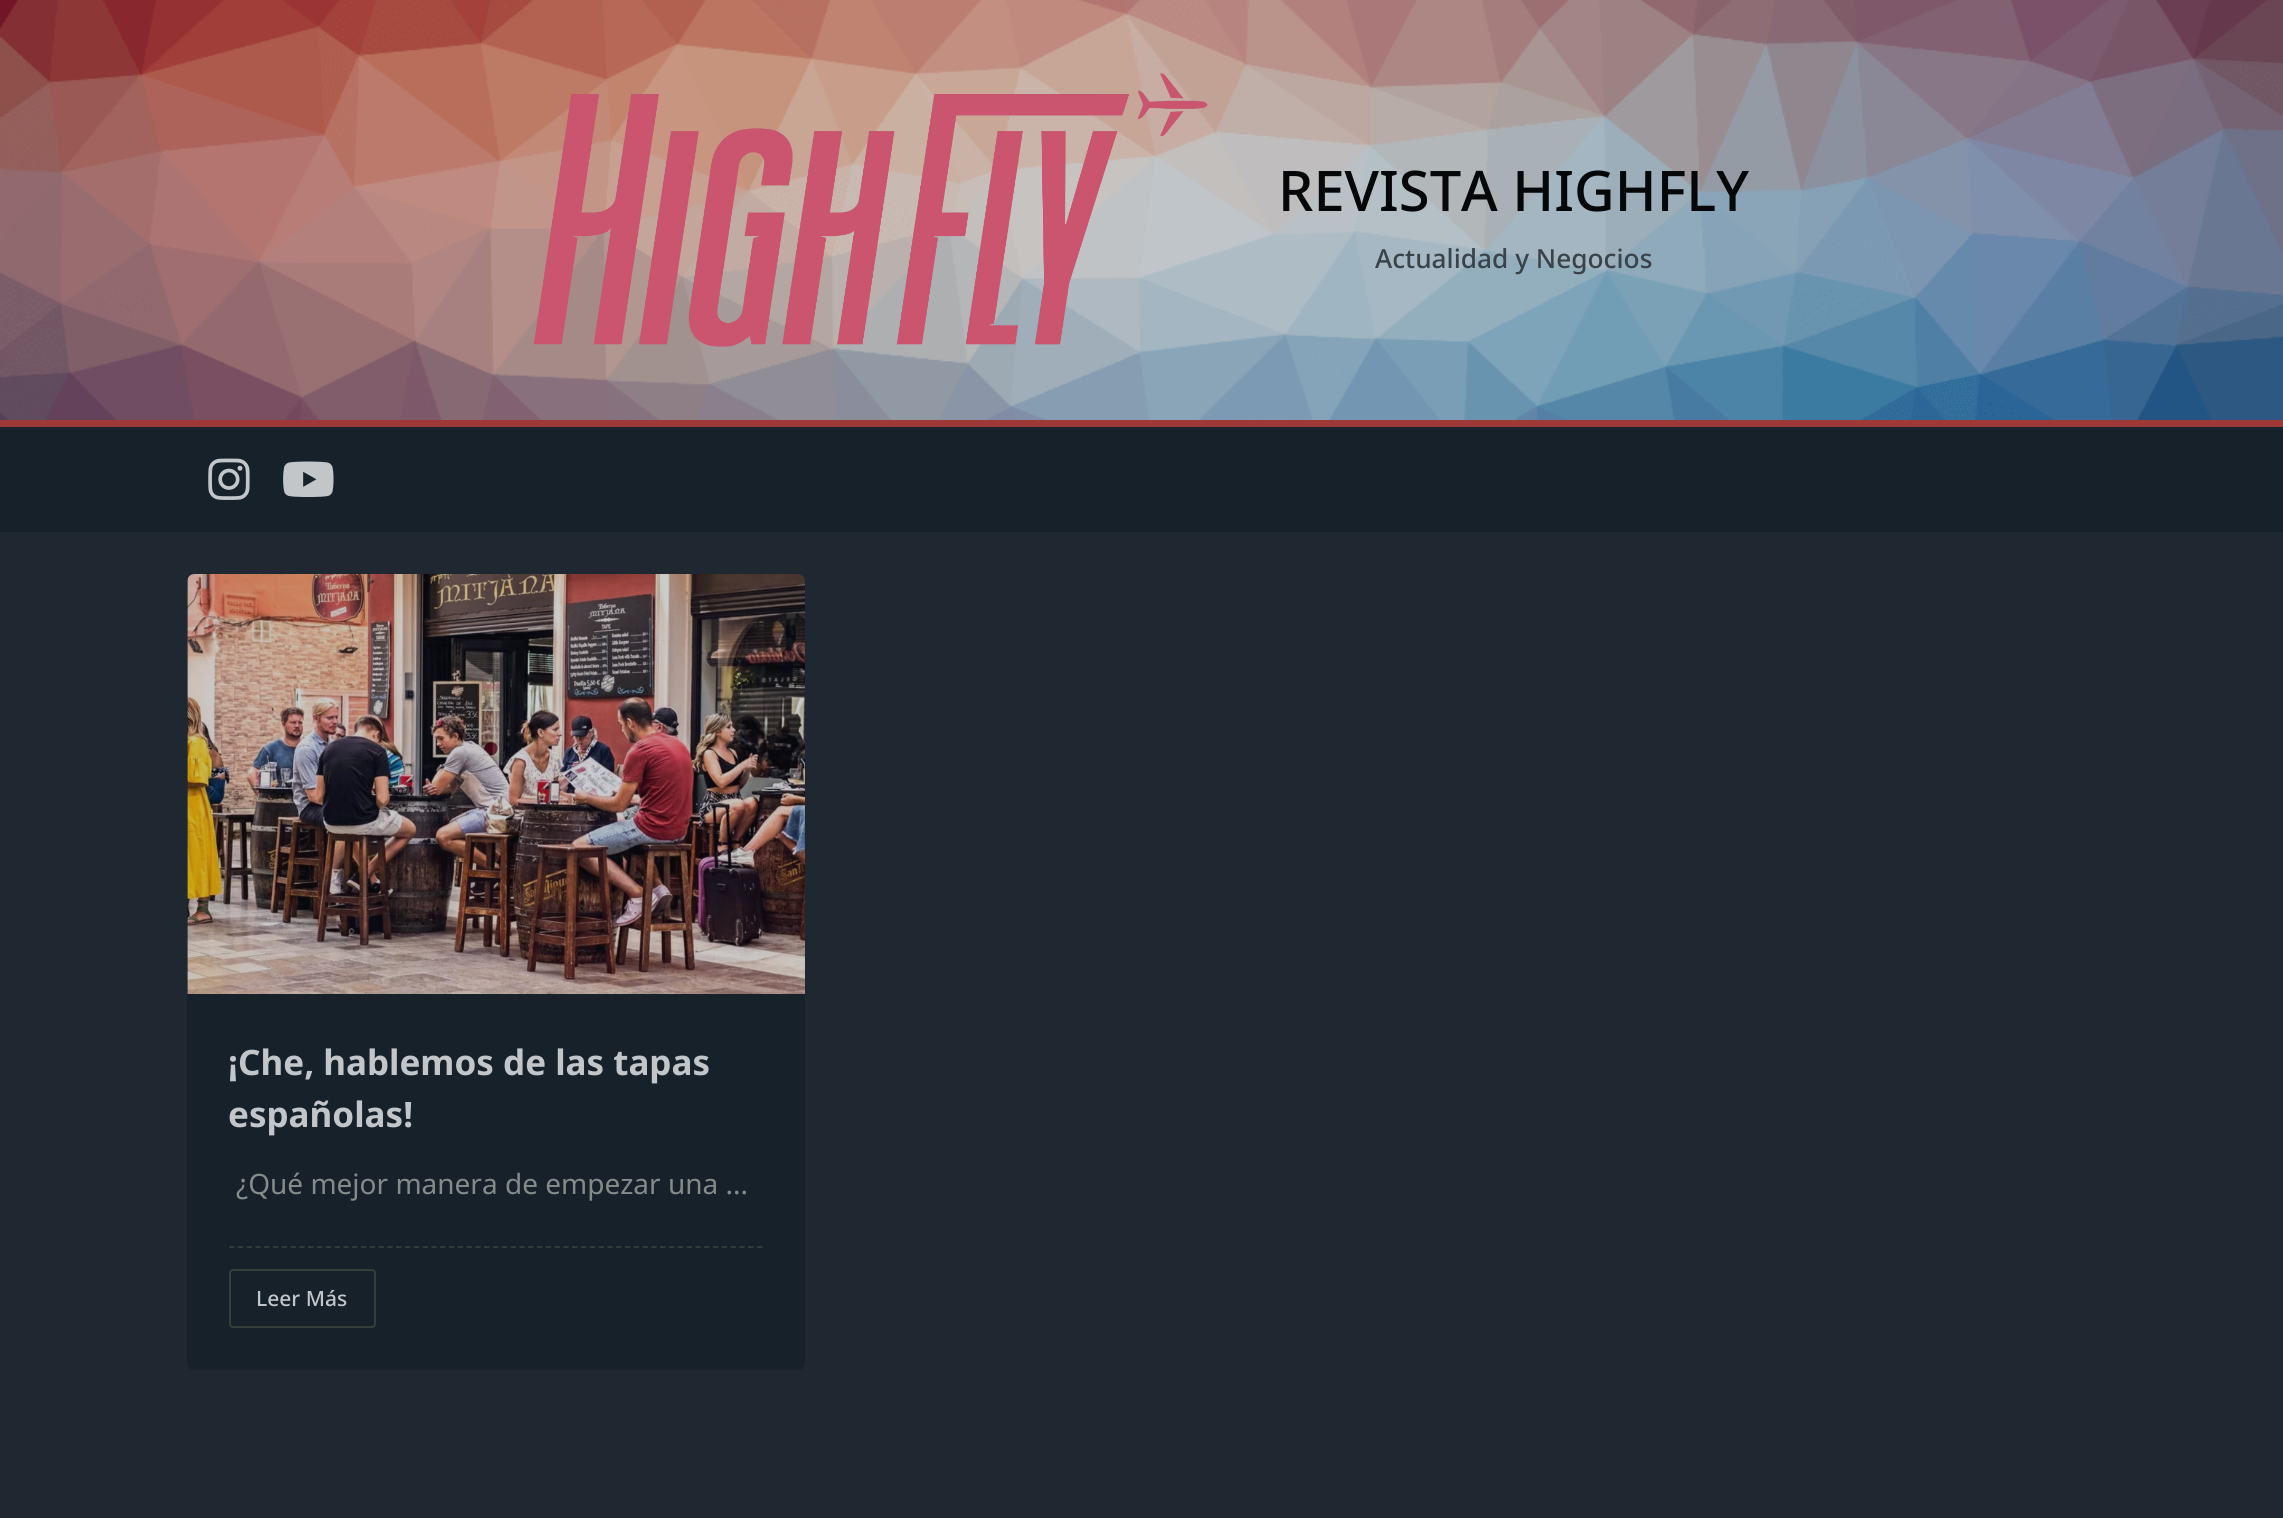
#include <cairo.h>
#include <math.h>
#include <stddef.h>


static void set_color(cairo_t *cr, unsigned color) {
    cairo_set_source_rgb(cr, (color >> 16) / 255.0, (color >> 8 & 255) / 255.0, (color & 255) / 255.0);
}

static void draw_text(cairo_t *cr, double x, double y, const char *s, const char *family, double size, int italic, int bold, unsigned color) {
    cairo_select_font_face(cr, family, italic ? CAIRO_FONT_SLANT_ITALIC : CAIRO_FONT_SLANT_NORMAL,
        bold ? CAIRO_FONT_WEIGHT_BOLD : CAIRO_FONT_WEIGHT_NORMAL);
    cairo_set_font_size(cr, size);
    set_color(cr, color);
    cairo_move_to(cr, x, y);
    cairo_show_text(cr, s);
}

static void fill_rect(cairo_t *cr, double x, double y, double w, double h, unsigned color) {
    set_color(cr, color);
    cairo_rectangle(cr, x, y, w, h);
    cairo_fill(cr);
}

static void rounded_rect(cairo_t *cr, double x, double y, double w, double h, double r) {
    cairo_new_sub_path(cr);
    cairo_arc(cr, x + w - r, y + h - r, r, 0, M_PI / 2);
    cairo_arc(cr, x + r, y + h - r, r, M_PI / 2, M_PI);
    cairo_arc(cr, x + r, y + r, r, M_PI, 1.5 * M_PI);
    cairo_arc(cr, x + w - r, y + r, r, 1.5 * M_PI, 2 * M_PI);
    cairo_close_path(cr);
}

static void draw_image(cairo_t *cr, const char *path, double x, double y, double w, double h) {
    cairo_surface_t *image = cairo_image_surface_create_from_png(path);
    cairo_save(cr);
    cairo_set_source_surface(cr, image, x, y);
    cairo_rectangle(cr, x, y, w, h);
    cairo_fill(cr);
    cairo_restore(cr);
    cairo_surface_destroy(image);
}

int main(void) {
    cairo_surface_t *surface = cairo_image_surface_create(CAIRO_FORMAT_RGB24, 2283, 1518);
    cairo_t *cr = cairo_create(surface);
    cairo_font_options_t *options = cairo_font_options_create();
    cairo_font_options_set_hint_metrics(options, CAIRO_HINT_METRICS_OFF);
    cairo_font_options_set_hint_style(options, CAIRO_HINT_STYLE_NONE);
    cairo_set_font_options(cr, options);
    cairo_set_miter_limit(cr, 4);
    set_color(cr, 0x1F2831);
    cairo_paint(cr);
    draw_image(cr, "assets/img1.png", 0, 0, 2283, 420);
    draw_image(cr, "assets/img2.png", 533, 73, 675, 274);
    draw_text(cr, 1278, 211, "REVISTA HIGHFLY", "Noto Sans Medium", 56, 0, 0, 0x050709);
    draw_text(cr, 1375, 268, "Actualidad y Negocios", "Noto Sans Medium", 26.25, 0, 0, 0x3A4349);
    fill_rect(cr, 0, 427, 2283, 105, 0x17212A);
    fill_rect(cr, 0, 420, 2283, 7, 0x9E3937);
    draw_image(cr, "assets/img3.png", 208, 458, 42, 42);
    draw_image(cr, "assets/img4.png", 283, 461, 51, 36);
    set_color(cr, 0x17212A);
    rounded_rect(cr, 187, 574, 618, 796, 7);
    cairo_fill(cr);
    draw_image(cr, "assets/img5.png", 187, 574, 618, 420);
    draw_text(cr, 228, 1075, "¡Che, hablemos de las tapas", "Noto Sans", 35, 0, 1, 0xC3C6C9);
    draw_text(cr, 228, 1127, "españolas!", "Noto Sans", 35, 0, 1, 0xC3C6C9);
    draw_text(cr, 236, 1194, "¿Qué mejor manera de empezar una ...", "Noto Sans", 28, 0, 0, 0x848B88);
    cairo_new_path(cr);
    cairo_move_to(cr, 229, 1247);
    cairo_line_to(cr, 763, 1247);
    set_color(cr, 0x363E3A);
    cairo_set_line_width(cr, 1.8);
    cairo_set_dash(cr, (double[]){5.25, 3.55}, 2, 0);
    cairo_stroke(cr);
    rounded_rect(cr, 230, 1270, 145, 57, 3);
    cairo_set_line_width(cr, 2);
    cairo_set_dash(cr, NULL, 0, 0);
    cairo_stroke(cr);
    draw_text(cr, 256, 1306, "Leer Más", "Noto Sans Medium", 21, 0, 0, 0xC3C6C9);
    cairo_surface_write_to_png(surface, "output.png");
    cairo_font_options_destroy(options);
    cairo_destroy(cr);
    cairo_surface_destroy(surface);
    return 0;
}
